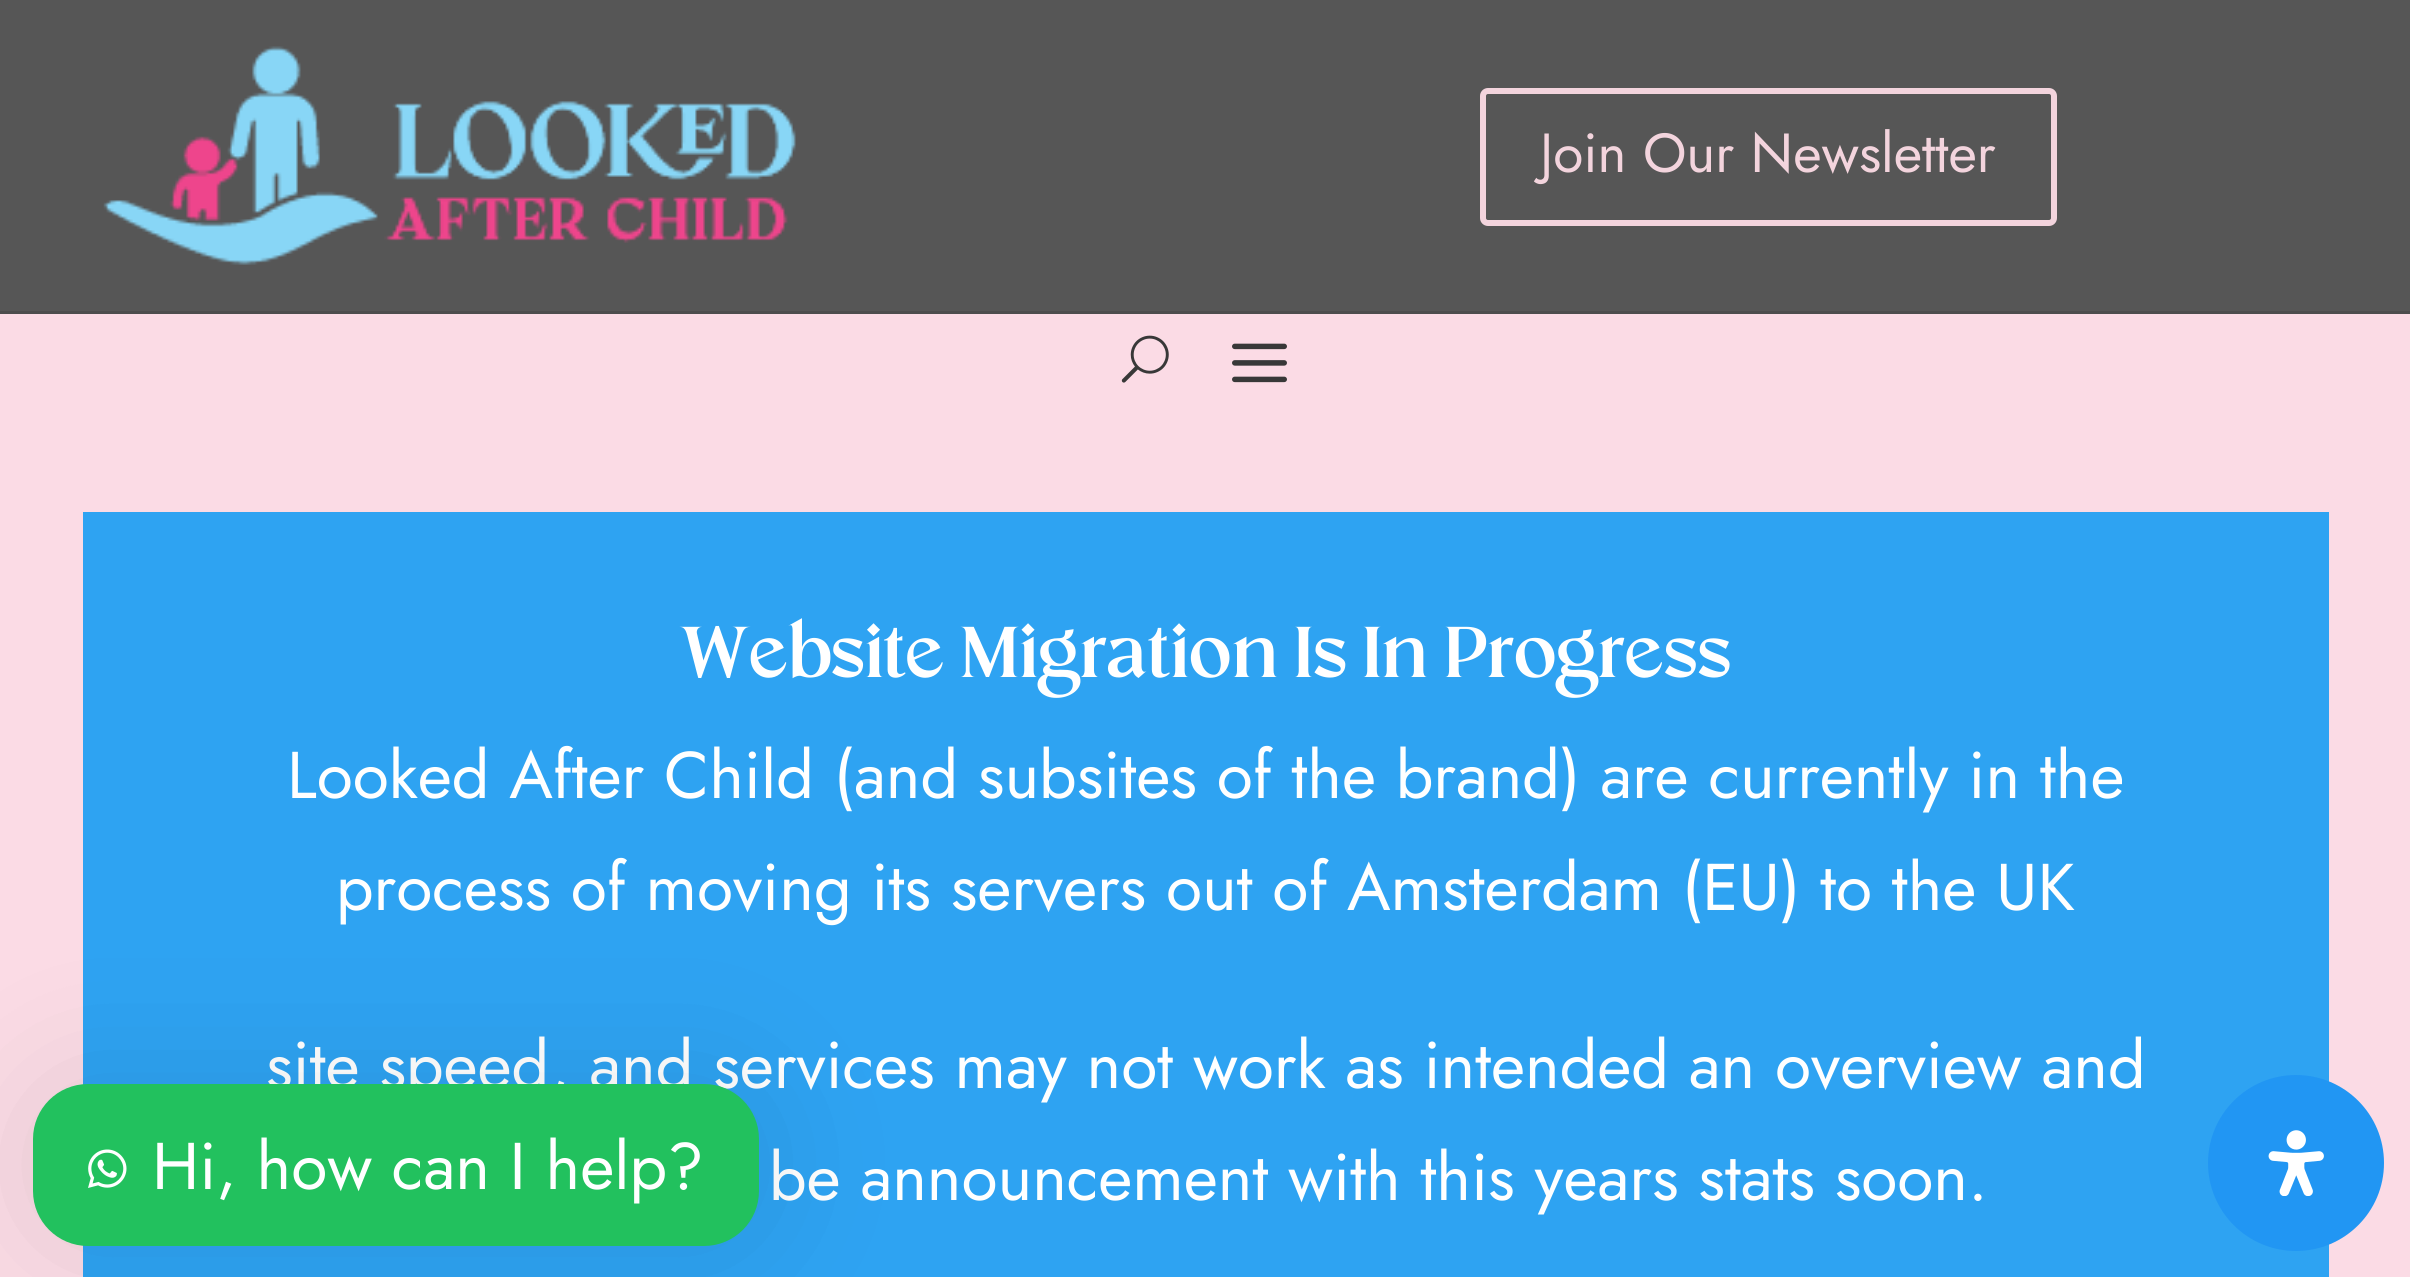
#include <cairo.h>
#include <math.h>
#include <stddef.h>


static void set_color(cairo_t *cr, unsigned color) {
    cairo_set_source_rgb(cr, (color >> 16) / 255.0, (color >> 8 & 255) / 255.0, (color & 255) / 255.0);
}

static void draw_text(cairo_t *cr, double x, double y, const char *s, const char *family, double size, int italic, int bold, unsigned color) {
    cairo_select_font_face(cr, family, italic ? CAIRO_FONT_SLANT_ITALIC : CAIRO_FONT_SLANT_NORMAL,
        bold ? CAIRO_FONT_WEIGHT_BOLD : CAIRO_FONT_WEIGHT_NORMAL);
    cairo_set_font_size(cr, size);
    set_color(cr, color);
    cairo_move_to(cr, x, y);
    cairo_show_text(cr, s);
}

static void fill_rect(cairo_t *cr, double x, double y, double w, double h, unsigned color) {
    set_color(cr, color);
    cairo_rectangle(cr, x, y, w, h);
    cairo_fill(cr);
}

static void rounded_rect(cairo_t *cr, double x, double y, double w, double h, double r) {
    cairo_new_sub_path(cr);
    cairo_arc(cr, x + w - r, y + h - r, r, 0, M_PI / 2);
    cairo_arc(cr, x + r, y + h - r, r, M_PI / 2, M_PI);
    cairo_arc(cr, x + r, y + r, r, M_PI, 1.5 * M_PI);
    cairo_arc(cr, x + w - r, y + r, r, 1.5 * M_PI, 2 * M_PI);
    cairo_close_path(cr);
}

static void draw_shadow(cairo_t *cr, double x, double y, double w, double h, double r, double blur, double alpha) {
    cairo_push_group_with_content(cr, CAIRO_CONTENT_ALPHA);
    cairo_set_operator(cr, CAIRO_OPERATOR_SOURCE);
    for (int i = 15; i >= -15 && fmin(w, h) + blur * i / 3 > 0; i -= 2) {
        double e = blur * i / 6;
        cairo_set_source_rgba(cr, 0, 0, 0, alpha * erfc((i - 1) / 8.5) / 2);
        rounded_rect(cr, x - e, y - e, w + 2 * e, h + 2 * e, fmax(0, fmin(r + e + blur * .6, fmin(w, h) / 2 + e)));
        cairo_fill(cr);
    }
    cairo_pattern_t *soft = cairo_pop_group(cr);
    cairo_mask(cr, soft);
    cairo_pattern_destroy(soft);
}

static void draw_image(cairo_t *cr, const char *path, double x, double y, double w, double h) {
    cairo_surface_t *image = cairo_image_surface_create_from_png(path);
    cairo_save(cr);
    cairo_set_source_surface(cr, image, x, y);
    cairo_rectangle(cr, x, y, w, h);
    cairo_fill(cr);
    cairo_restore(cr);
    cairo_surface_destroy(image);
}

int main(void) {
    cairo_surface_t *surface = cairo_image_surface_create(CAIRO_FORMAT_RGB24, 2410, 1277);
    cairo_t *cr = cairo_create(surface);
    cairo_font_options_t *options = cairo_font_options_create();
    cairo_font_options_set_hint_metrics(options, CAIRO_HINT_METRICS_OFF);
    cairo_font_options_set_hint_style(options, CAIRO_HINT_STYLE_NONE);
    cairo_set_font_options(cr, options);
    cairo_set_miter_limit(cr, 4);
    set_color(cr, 0x565656);
    cairo_paint(cr);
    fill_rect(cr, 0, 311, 2410, 3, 0x4D4D4D);
    draw_image(cr, "assets/img1.png", 103, 46, 693, 219);
    rounded_rect(cr, 1483, 91, 571, 132, 5);
    set_color(cr, 0xF3D4DD);
    cairo_set_line_width(cr, 6);
    cairo_stroke(cr);
    draw_text(cr, 1540, 172, "Join Our Newsletter", "Jost", 55, 0, 0, 0xF3D4DD);
    fill_rect(cr, 0, 314, 2410, 963, 0xFBDBE5);
    draw_image(cr, "assets/img2.png", 1121, 335, 48, 48);
    draw_image(cr, "assets/img3.png", 1232, 343, 55, 40);
    fill_rect(cr, 83, 512, 2246, 765, 0x2EA3F2);
    draw_text(cr, 680, 677, "Website Migration Is In Progress", "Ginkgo", 71.5, 0, 1, 0xFFFFFF);
    draw_text(cr, 287, 798, "Looked After Child (and subsites of the brand) are currently in the", "Jost", 66, 0, 0, 0xFFFFFF);
    draw_text(cr, 336, 910, "process of moving its servers out of Amsterdam (EU) to the UK", "Jost", 66, 0, 0, 0xFFFFFF);
    draw_text(cr, 266, 1088, "site speed, and services may not work as intended an overview and", "Jost", 66, 0, 0, 0xFFFFFF);
    draw_text(cr, 769, 1200, "be announcement with this years stats soon.", "Jost", 66, 0, 0, 0xFFFFFF);
    set_color(cr, 0x2196F3);
    cairo_new_path(cr);
    cairo_arc(cr, 2296, 1163, 88, 0, 2 * M_PI);
    cairo_fill(cr);
    draw_image(cr, "assets/img4.png", 2268, 1130, 56, 66);
    set_color(cr, 0x000000);
    draw_shadow(cr, 33, 1084, 726, 162, 55, 69, 0.1);
    set_color(cr, 0x22C15E);
    rounded_rect(cr, 33, 1084, 726, 162, 55);
    cairo_fill(cr);
    draw_image(cr, "assets/img5.png", 88, 1149, 39, 39);
    draw_text(cr, 152, 1189, "Hi, how can I help?", "Jost", 66, 0, 0, 0xFFFFFF);
    cairo_surface_write_to_png(surface, "output.png");
    cairo_font_options_destroy(options);
    cairo_destroy(cr);
    cairo_surface_destroy(surface);
    return 0;
}
